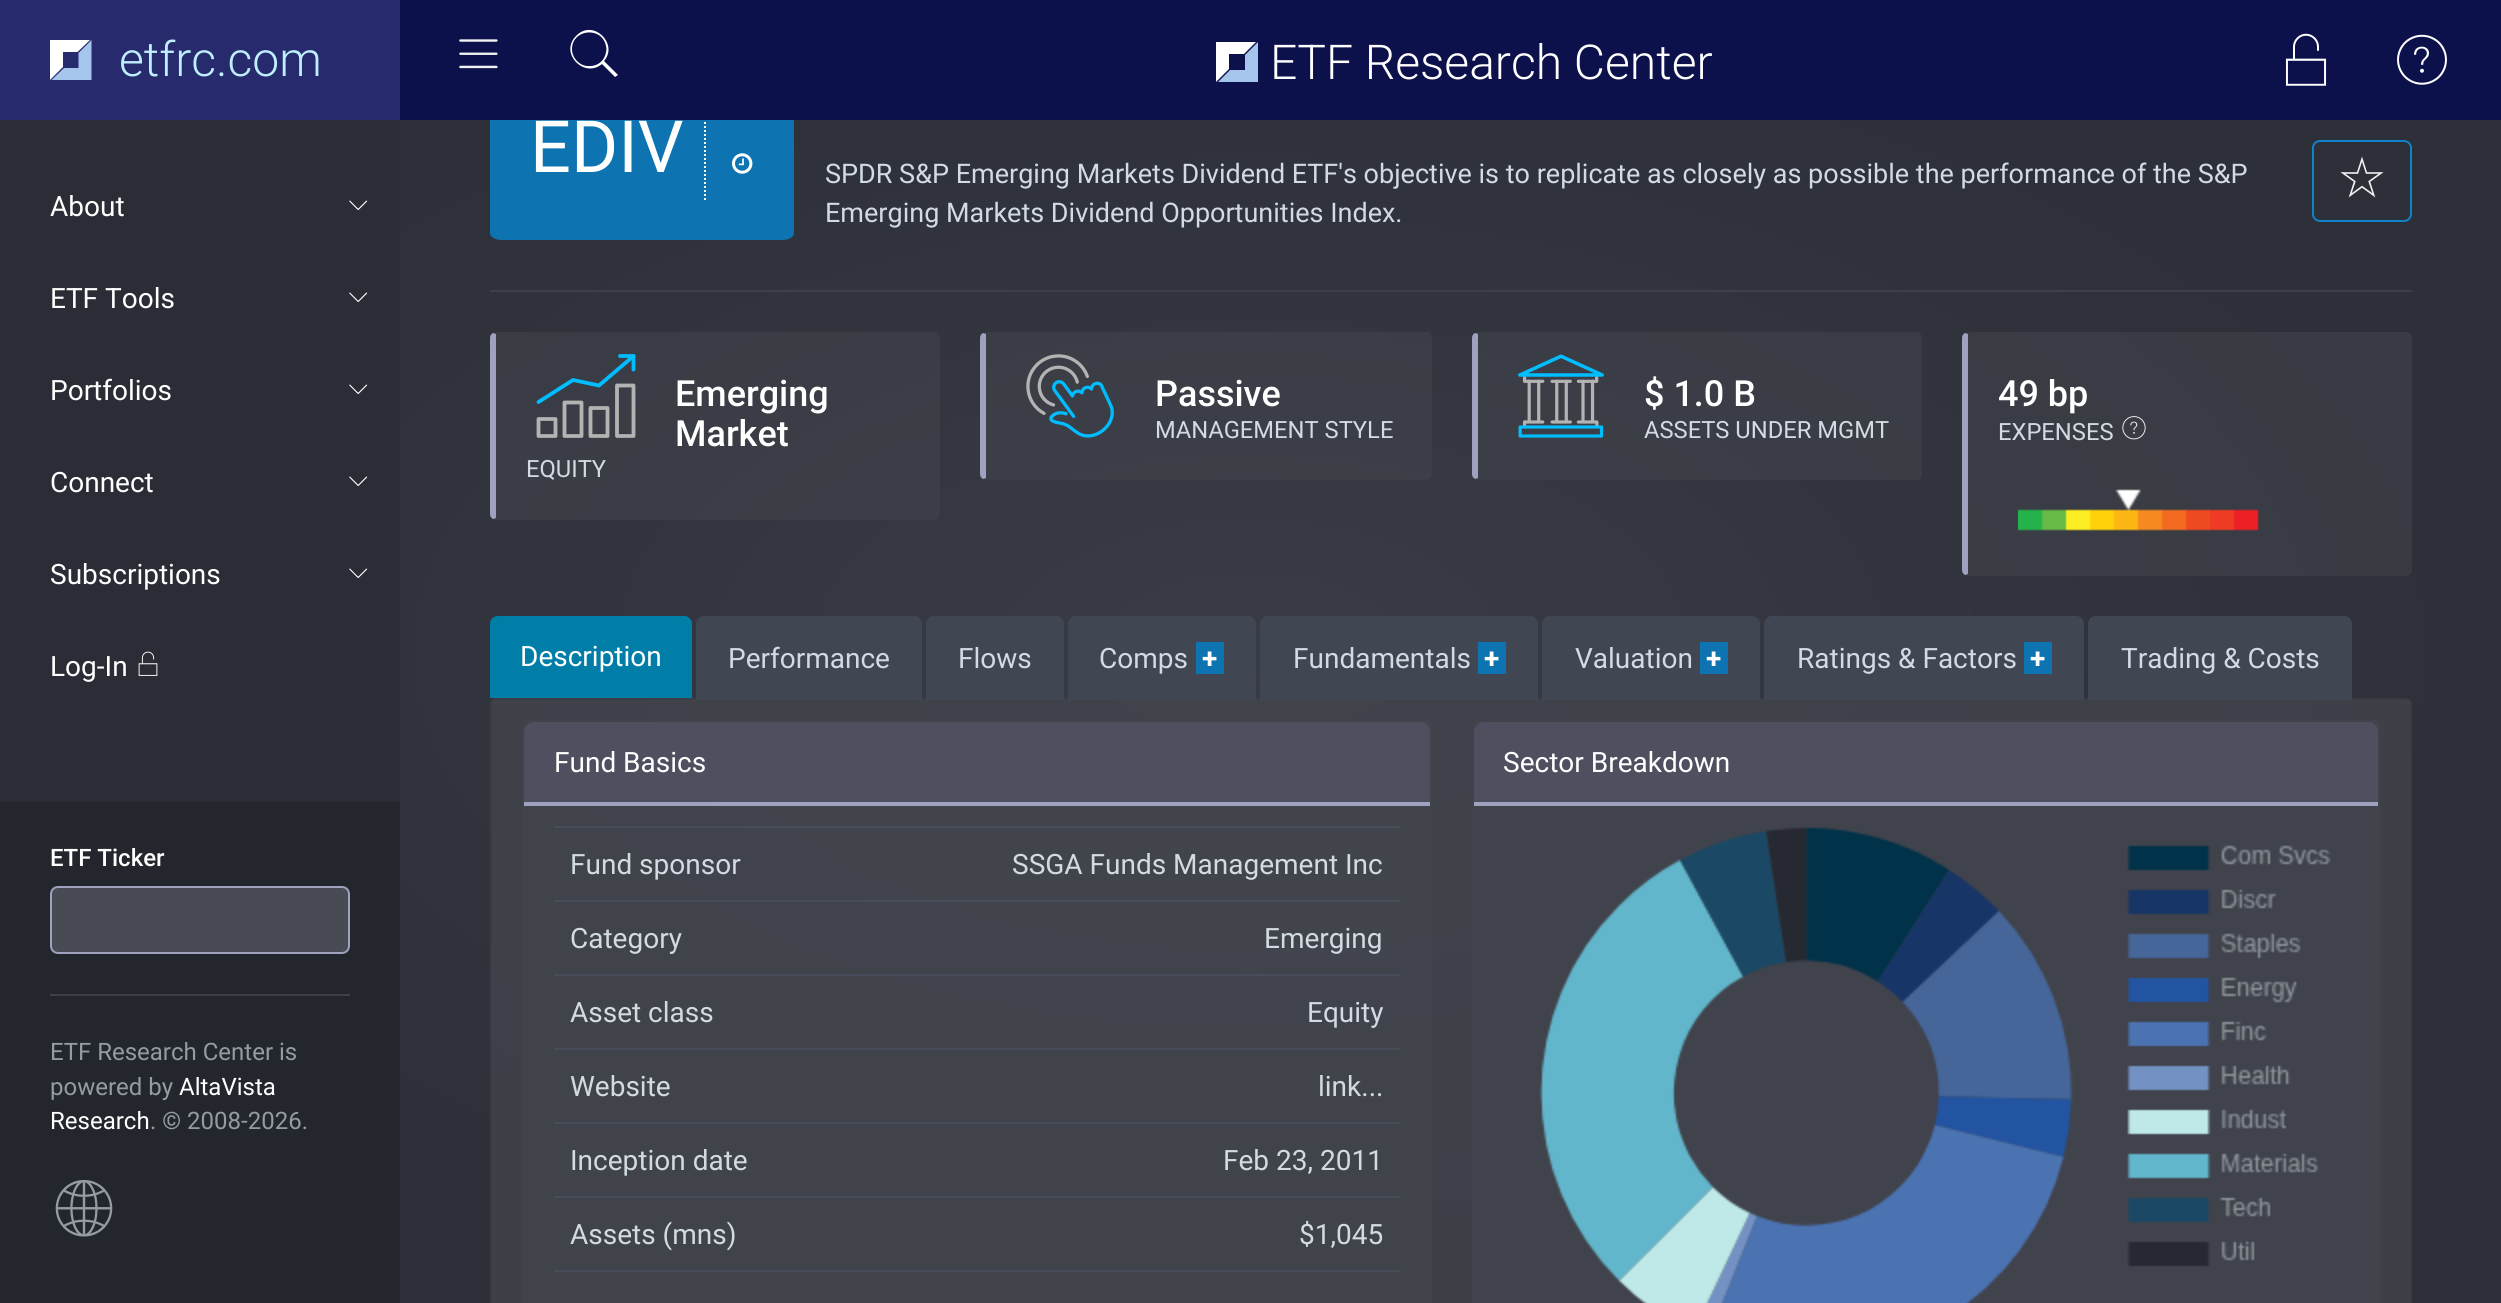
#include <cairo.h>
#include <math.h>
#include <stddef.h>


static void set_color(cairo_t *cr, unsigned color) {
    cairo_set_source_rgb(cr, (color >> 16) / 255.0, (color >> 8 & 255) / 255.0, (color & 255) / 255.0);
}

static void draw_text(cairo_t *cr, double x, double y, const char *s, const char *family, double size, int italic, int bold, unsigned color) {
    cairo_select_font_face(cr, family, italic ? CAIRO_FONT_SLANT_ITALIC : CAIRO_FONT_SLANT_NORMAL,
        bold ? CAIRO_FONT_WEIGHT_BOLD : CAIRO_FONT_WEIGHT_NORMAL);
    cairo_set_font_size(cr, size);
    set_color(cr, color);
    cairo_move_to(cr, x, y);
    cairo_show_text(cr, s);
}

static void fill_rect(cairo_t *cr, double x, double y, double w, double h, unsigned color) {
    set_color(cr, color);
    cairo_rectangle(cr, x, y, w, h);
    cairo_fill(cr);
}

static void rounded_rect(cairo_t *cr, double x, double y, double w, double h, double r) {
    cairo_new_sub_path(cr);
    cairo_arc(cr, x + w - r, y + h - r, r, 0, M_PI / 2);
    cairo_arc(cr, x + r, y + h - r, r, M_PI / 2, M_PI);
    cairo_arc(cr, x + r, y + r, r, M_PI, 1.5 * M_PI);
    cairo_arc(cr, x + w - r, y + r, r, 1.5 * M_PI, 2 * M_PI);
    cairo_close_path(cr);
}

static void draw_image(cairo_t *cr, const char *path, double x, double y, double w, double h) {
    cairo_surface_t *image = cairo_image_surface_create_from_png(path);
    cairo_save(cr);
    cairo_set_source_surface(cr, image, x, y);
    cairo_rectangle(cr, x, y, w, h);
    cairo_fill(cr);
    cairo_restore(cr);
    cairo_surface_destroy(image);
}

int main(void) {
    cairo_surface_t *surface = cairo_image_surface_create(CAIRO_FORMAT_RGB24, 2501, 1303);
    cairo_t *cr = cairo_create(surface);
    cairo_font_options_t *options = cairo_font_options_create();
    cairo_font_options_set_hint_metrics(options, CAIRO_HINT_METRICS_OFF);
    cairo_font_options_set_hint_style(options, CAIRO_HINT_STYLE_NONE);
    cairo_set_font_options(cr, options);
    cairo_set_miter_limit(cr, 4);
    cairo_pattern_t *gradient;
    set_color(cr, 0xFFFFFF);
    cairo_paint(cr);
    gradient = cairo_pattern_create_radial(0, 0, 0, 0, 0, 1);
    cairo_pattern_set_matrix(gradient, &(cairo_matrix_t){1.0 / 1769, 0, 0, 1.0 / 922, -1.0 * 1251 / 1769, -1.0 * 652 / 922});
    cairo_pattern_add_color_stop_rgba(gradient, 0, 0.224, 0.231, 0.271, 1);
    cairo_pattern_add_color_stop_rgba(gradient, 0.7, 0.176, 0.188, 0.22, 1);
    cairo_set_source(cr, gradient);
    cairo_pattern_destroy(gradient);
    cairo_rectangle(cr, 400, 120, 2101, 1183);
    cairo_fill(cr);
    set_color(cr, 0x0D74B1);
    cairo_new_path(cr);
    cairo_move_to(cr, 502, 58);
    cairo_line_to(cr, 782, 58);
    cairo_curve_to(cr, 789, 58, 794, 61, 794, 65);
    cairo_line_to(cr, 794, 233);
    cairo_curve_to(cr, 794, 237, 789, 240, 782, 240);
    cairo_line_to(cr, 502, 240);
    cairo_curve_to(cr, 495, 240, 490, 237, 490, 233);
    cairo_line_to(cr, 490, 65);
    cairo_curve_to(cr, 490, 61, 495, 58, 502, 58);
    cairo_close_path(cr);
    cairo_fill(cr);
    cairo_new_path(cr);
    cairo_move_to(cr, 705, 98);
    cairo_line_to(cr, 705, 200);
    set_color(cr, 0xFFFFFF);
    cairo_set_dash(cr, (double[]){2, 2}, 2, 0);
    cairo_stroke(cr);
    fill_rect(cr, 400, 0, 2101, 120, 0x0C104B);
    fill_rect(cr, 0, 0, 400, 120, 0x272B6E);
    set_color(cr, 0xA5C5ED);
    cairo_new_path(cr);
    cairo_move_to(cr, 78.5, 53);
    cairo_line_to(cr, 78.5, 68);
    cairo_line_to(cr, 64, 68);
    cairo_line_to(cr, 51.5, 80);
    cairo_line_to(cr, 91.5, 80);
    cairo_line_to(cr, 91.5, 40);
    cairo_close_path(cr);
    cairo_fill(cr);
    set_color(cr, 0xFFFFFF);
    cairo_new_path(cr);
    cairo_move_to(cr, 63, 52);
    cairo_line_to(cr, 77.5, 52);
    cairo_line_to(cr, 90, 40);
    cairo_line_to(cr, 50, 40);
    cairo_line_to(cr, 50, 80);
    cairo_line_to(cr, 63, 67);
    cairo_close_path(cr);
    cairo_fill(cr);
    draw_text(cr, 119, 76, "etfrc.com", "Roboto Light", 48, 0, 0, 0xBFEFFF);
    draw_image(cr, "assets/img1.png", 459, 39, 39, 30);
    set_color(cr, 0xFFFFFF);
    cairo_new_path(cr);
    cairo_move_to(cr, 618, 75);
    cairo_line_to(cr, 604, 61);
    cairo_curve_to(cr, 619, 44, 593, 18, 576, 36);
    cairo_curve_to(cr, 559, 53, 584, 79, 602, 64);
    cairo_line_to(cr, 615, 77);
    cairo_close_path(cr);
    cairo_move_to(cr, 572, 49);
    cairo_curve_to(cr, 572, 29, 602, 26, 606, 46);
    cairo_curve_to(cr, 607, 50, 606, 54, 604, 58);
    cairo_curve_to(cr, 601, 63, 596, 66, 590, 66);
    cairo_curve_to(cr, 581, 67, 572, 59, 572, 49);
    cairo_close_path(cr);
    cairo_fill(cr);
    set_color(cr, 0xA5C5ED);
    cairo_new_path(cr);
    cairo_move_to(cr, 1245, 55);
    cairo_line_to(cr, 1245, 70);
    cairo_line_to(cr, 1230, 70);
    cairo_line_to(cr, 1218, 82);
    cairo_line_to(cr, 1258, 82);
    cairo_line_to(cr, 1258, 42);
    cairo_close_path(cr);
    cairo_fill(cr);
    set_color(cr, 0xFFFFFF);
    cairo_new_path(cr);
    cairo_move_to(cr, 1229, 54);
    cairo_line_to(cr, 1244, 54);
    cairo_line_to(cr, 1256, 42);
    cairo_line_to(cr, 1216, 42);
    cairo_line_to(cr, 1216, 82);
    cairo_line_to(cr, 1229, 69);
    cairo_close_path(cr);
    cairo_fill(cr);
    draw_text(cr, 1270, 79, "ETF Research Center", "Roboto Light", 48, 0, 0, 0xFFFFFF);
    draw_image(cr, "assets/img2.png", 2285, 33, 42, 53);
    draw_image(cr, "assets/img3.png", 2397, 34, 50, 51);
    fill_rect(cr, 0, 120, 400, 682, 0x2A2D35);
    draw_text(cr, 50, 216, "About", "Roboto", 28, 0, 0, 0xFFFFFF);
    draw_image(cr, "assets/img4.png", 349, 200, 19, 10);
    draw_text(cr, 50, 308, "ETF Tools", "Roboto", 28, 0, 0, 0xFFFFFF);
    draw_image(cr, "assets/img4.png", 349, 292, 19, 10);
    draw_text(cr, 50, 400, "Portfolios", "Roboto", 28, 0, 0, 0xFFFFFF);
    draw_image(cr, "assets/img4.png", 349, 384, 19, 10);
    draw_text(cr, 50, 492, "Connect", "Roboto", 28, 0, 0, 0xFFFFFF);
    draw_image(cr, "assets/img4.png", 349, 476, 19, 10);
    draw_text(cr, 50, 584, "Subscriptions", "Roboto", 28, 0, 0, 0xFFFFFF);
    draw_image(cr, "assets/img4.png", 349, 568, 19, 10);
    draw_text(cr, 50, 676, "Log-In", "Roboto", 28, 0, 0, 0xFFFFFF);
    draw_image(cr, "assets/img5.png", 138, 651, 20, 25);
    fill_rect(cr, 0, 802, 400, 501, 0x24262D);
    draw_text(cr, 50, 866, "ETF Ticker", "Roboto Medium", 24, 0, 0, 0xFFFFFF);
    set_color(cr, 0x494B54);
    rounded_rect(cr, 51, 887, 298, 66, 7);
    cairo_fill_preserve(cr);
    set_color(cr, 0x9FA1BE);
    cairo_set_dash(cr, NULL, 0, 0);
    cairo_stroke(cr);
    fill_rect(cr, 50, 994, 300, 2, 0x3D404C);
    draw_text(cr, 50, 1060, "ETF Research Center is", "Roboto", 24, 0, 0, 0x949BA2);
    draw_text(cr, 50, 1095, "powered by", "Roboto", 24, 0, 0, 0x949BA2);
    draw_text(cr, 179, 1095, "AltaVista", "Roboto", 24, 0, 0, 0xFFFFFF);
    draw_text(cr, 50, 1129, "Research", "Roboto", 24, 0, 0, 0xFFFFFF);
    draw_text(cr, 150, 1129, ". © 2008-2026.", "Roboto", 24, 0, 0, 0x949BA2);
    draw_image(cr, "assets/img6.png", 55, 1180, 58, 57);
    draw_text(cr, 530, 172, "EDIV", "Roboto", 72, 0, 0, 0xFFFFFF);
    draw_image(cr, "assets/img7.png", 732, 153, 21, 21);
    draw_text(cr, 825, 183, "SPDR S&P Emerging Markets Dividend ETF's objective is to replicate as closely as possible the performance of the S&P", "Roboto", 27, 0, 0, 0xD2DAE2);
    draw_text(cr, 825, 222, "Emerging Markets Dividend Opportunities Index.", "Roboto", 27, 0, 0, 0xD2DAE2);
    rounded_rect(cr, 2313, 141, 98, 80, 7);
    set_color(cr, 0x0F83C9);
    cairo_stroke(cr);
    draw_image(cr, "assets/img8.png", 2340, 156, 44, 42);
    fill_rect(cr, 490, 290, 1922, 2, 0x3D404C);
    cairo_set_source_rgba(cr, 0.267, 0.275, 0.31, 0.5);
    rounded_rect(cr, 490, 332, 450, 188, 6);
    cairo_fill(cr);
    set_color(cr, 0x9FA1BE);
    cairo_new_path(cr);
    cairo_move_to(cr, 496, 334);
    cairo_line_to(cr, 493, 333);
    cairo_curve_to(cr, 491, 334, 490, 336, 490, 338);
    cairo_line_to(cr, 490, 514);
    cairo_curve_to(cr, 490, 516, 491, 518, 493, 519);
    cairo_line_to(cr, 496, 518);
    cairo_close_path(cr);
    cairo_fill(cr);
    cairo_new_path(cr);
    cairo_move_to(cr, 620, 356);
    cairo_line_to(cr, 633.5, 356);
    cairo_line_to(cr, 633.5, 369.5);
    set_color(cr, 0x00BDFF);
    cairo_set_line_width(cr, 3.8);
    cairo_set_line_cap(cr, CAIRO_LINE_CAP_ROUND);
    cairo_set_line_join(cr, CAIRO_LINE_JOIN_ROUND);
    cairo_stroke(cr);
    cairo_new_path(cr);
    cairo_move_to(cr, 555.5, 436);
    cairo_line_to(cr, 538.5, 436);
    cairo_line_to(cr, 538.5, 419);
    cairo_line_to(cr, 555.5, 419);
    cairo_close_path(cr);
    cairo_move_to(cr, 581.5, 436);
    cairo_line_to(cr, 564.5, 436);
    cairo_line_to(cr, 564.5, 402.5);
    cairo_line_to(cr, 581.5, 402.5);
    cairo_close_path(cr);
    set_color(cr, 0xB3B3B3);
    cairo_stroke(cr);
    cairo_new_path(cr);
    cairo_move_to(cr, 607.5, 436);
    cairo_line_to(cr, 590.5, 436);
    cairo_line_to(cr, 590.5, 408);
    cairo_line_to(cr, 607.5, 408);
    cairo_close_path(cr);
    cairo_move_to(cr, 633.5, 436);
    cairo_line_to(cr, 617, 436);
    cairo_line_to(cr, 617, 385.5);
    cairo_line_to(cr, 633.5, 385.5);
    cairo_close_path(cr);
    cairo_stroke(cr);
    cairo_new_path(cr);
    cairo_move_to(cr, 538.5, 402);
    cairo_line_to(cr, 573, 380);
    cairo_line_to(cr, 599, 385.5);
    cairo_line_to(cr, 633.5, 356);
    set_color(cr, 0x00BDFF);
    cairo_stroke(cr);
    draw_text(cr, 675, 406, "Emerging", "Roboto Medium", 36, 0, 0, 0xFFFFFF);
    draw_text(cr, 675, 446, "Market", "Roboto Medium", 36, 0, 0, 0xFFFFFF);
    draw_text(cr, 526, 477, "EQUITY", "Roboto", 23.75, 0, 0, 0xD2DAE2);
    cairo_set_source_rgba(cr, 0.267, 0.275, 0.31, 0.5);
    rounded_rect(cr, 980, 332, 452, 148, 6);
    cairo_fill(cr);
    set_color(cr, 0x9FA1BE);
    cairo_new_path(cr);
    cairo_move_to(cr, 986, 334);
    cairo_line_to(cr, 983, 333);
    cairo_curve_to(cr, 981, 334, 980, 336, 980, 338);
    cairo_line_to(cr, 980, 474);
    cairo_curve_to(cr, 980, 476, 981, 478, 983, 479);
    cairo_line_to(cr, 986, 478);
    cairo_close_path(cr);
    cairo_fill(cr);
    draw_image(cr, "assets/img9.png", 1026, 354, 88, 84);
    draw_text(cr, 1155, 406, "Passive", "Roboto Medium", 36, 0, 0, 0xFFFFFF);
    draw_text(cr, 1155, 438, "MANAGEMENT STYLE", "Roboto", 23.75, 0, 0, 0xD2DAE2);
    cairo_set_source_rgba(cr, 0.267, 0.275, 0.31, 0.5);
    rounded_rect(cr, 1472, 332, 450, 148, 6);
    cairo_fill(cr);
    set_color(cr, 0x9FA1BE);
    cairo_new_path(cr);
    cairo_move_to(cr, 1478, 334);
    cairo_line_to(cr, 1475, 333);
    cairo_curve_to(cr, 1473, 334, 1472, 336, 1472, 338);
    cairo_line_to(cr, 1472, 474);
    cairo_curve_to(cr, 1472, 476, 1473, 478, 1475, 479);
    cairo_line_to(cr, 1478, 478);
    cairo_close_path(cr);
    cairo_fill(cr);
    draw_image(cr, "assets/img10.png", 1518, 354, 86, 84);
    draw_text(cr, 1644, 406, "$ 1.0 B", "Roboto Medium", 36, 0, 0, 0xFFFFFF);
    draw_text(cr, 1644, 438, "ASSETS UNDER MGMT", "Roboto", 23.75, 0, 0, 0xD2DAE2);
    cairo_set_source_rgba(cr, 0.267, 0.275, 0.31, 0.5);
    rounded_rect(cr, 1962, 332, 450, 244, 6);
    cairo_fill(cr);
    set_color(cr, 0x9FA1BE);
    cairo_new_path(cr);
    cairo_move_to(cr, 1968, 334);
    cairo_line_to(cr, 1965, 333);
    cairo_curve_to(cr, 1963, 334, 1962, 336, 1962, 338);
    cairo_line_to(cr, 1962, 570);
    cairo_curve_to(cr, 1962, 572, 1963, 574, 1965, 575);
    cairo_line_to(cr, 1968, 574);
    cairo_close_path(cr);
    cairo_fill(cr);
    draw_text(cr, 1998, 406, "49 bp", "Roboto Medium", 36, 0, 0, 0xFFFFFF);
    draw_text(cr, 1998, 440, "EXPENSES", "Roboto", 23.75, 0, 0, 0xD2DAE2);
    draw_image(cr, "assets/img11.png", 2122, 416, 24, 24);
    draw_image(cr, "assets/img12.png", 2018, 489, 241, 42);
    set_color(cr, 0x007EA7);
    cairo_new_path(cr);
    cairo_move_to(cr, 498, 616);
    cairo_line_to(cr, 684, 616);
    cairo_curve_to(cr, 688.5, 616, 692, 619.5, 692, 624);
    cairo_line_to(cr, 692, 698);
    cairo_line_to(cr, 490, 698);
    cairo_line_to(cr, 490, 624);
    cairo_curve_to(cr, 490, 619.5, 493.5, 616, 498, 616);
    cairo_close_path(cr);
    cairo_fill(cr);
    draw_text(cr, 520, 666, "Description", "Roboto", 28, 0, 0, 0xFFFFFF);
    cairo_set_source_rgba(cr, 0.267, 0.275, 0.31, 0.5);
    rounded_rect(cr, 490, 698, 1922, 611, 6);
    cairo_fill(cr);
    set_color(cr, 0x404652);
    cairo_new_path(cr);
    cairo_move_to(cr, 704, 616);
    cairo_line_to(cr, 914, 616);
    cairo_curve_to(cr, 918.5, 616, 922, 619.5, 922, 624);
    cairo_line_to(cr, 922, 700);
    cairo_line_to(cr, 696, 700);
    cairo_line_to(cr, 696, 624);
    cairo_curve_to(cr, 696, 619.5, 699.5, 616, 704, 616);
    cairo_close_path(cr);
    cairo_fill(cr);
    draw_text(cr, 728, 668, "Performance", "Roboto", 28, 0, 0, 0xD2DAE2);
    set_color(cr, 0x404652);
    cairo_new_path(cr);
    cairo_move_to(cr, 934, 616);
    cairo_line_to(cr, 1056, 616);
    cairo_curve_to(cr, 1060.5, 616, 1064, 619.5, 1064, 624);
    cairo_line_to(cr, 1064, 700);
    cairo_line_to(cr, 926, 700);
    cairo_line_to(cr, 926, 624);
    cairo_curve_to(cr, 926, 619.5, 929.5, 616, 934, 616);
    cairo_close_path(cr);
    cairo_fill(cr);
    draw_text(cr, 958, 668, "Flows", "Roboto", 28, 0, 0, 0xD2DAE2);
    set_color(cr, 0x404652);
    cairo_new_path(cr);
    cairo_move_to(cr, 1076, 616);
    cairo_line_to(cr, 1248, 616);
    cairo_curve_to(cr, 1252.5, 616, 1256, 619.5, 1256, 624);
    cairo_line_to(cr, 1256, 700);
    cairo_line_to(cr, 1068, 700);
    cairo_line_to(cr, 1068, 624);
    cairo_curve_to(cr, 1068, 619.5, 1071.5, 616, 1076, 616);
    cairo_close_path(cr);
    cairo_fill(cr);
    draw_text(cr, 1099, 668, "Comps", "Roboto", 28, 0, 0, 0xD2DAE2);
    fill_rect(cr, 1196, 642, 28, 32, 0x0D74B1);
    draw_text(cr, 1202, 668, "+", "Roboto", 28, 0, 1, 0xFFFFFF);
    set_color(cr, 0x404652);
    cairo_new_path(cr);
    cairo_move_to(cr, 1268, 616);
    cairo_line_to(cr, 1530, 616);
    cairo_curve_to(cr, 1534.5, 616, 1538, 619.5, 1538, 624);
    cairo_line_to(cr, 1538, 700);
    cairo_line_to(cr, 1260, 700);
    cairo_line_to(cr, 1260, 624);
    cairo_curve_to(cr, 1260, 619.5, 1263.5, 616, 1268, 616);
    cairo_close_path(cr);
    cairo_fill(cr);
    draw_text(cr, 1293, 668, "Fundamentals", "Roboto", 28, 0, 0, 0xD2DAE2);
    fill_rect(cr, 1478, 642, 28, 32, 0x0D74B1);
    draw_text(cr, 1484, 668, "+", "Roboto", 28, 0, 1, 0xFFFFFF);
    set_color(cr, 0x404652);
    cairo_new_path(cr);
    cairo_move_to(cr, 1550, 616);
    cairo_line_to(cr, 1752, 616);
    cairo_curve_to(cr, 1756.5, 616, 1760, 619.5, 1760, 624);
    cairo_line_to(cr, 1760, 700);
    cairo_line_to(cr, 1542, 700);
    cairo_line_to(cr, 1542, 624);
    cairo_curve_to(cr, 1542, 619.5, 1545.5, 616, 1550, 616);
    cairo_close_path(cr);
    cairo_fill(cr);
    draw_text(cr, 1575, 668, "Valuation", "Roboto", 28, 0, 0, 0xD2DAE2);
    fill_rect(cr, 1700, 642, 28, 32, 0x0D74B1);
    draw_text(cr, 1706, 668, "+", "Roboto", 28, 0, 1, 0xFFFFFF);
    set_color(cr, 0x404652);
    cairo_new_path(cr);
    cairo_move_to(cr, 1772, 616);
    cairo_line_to(cr, 2076, 616);
    cairo_curve_to(cr, 2080.5, 616, 2084, 619.5, 2084, 624);
    cairo_line_to(cr, 2084, 700);
    cairo_line_to(cr, 1764, 700);
    cairo_line_to(cr, 1764, 624);
    cairo_curve_to(cr, 1764, 619.5, 1767.5, 616, 1772, 616);
    cairo_close_path(cr);
    cairo_fill(cr);
    draw_text(cr, 1797, 668, "Ratings & Factors", "Roboto", 28, 0, 0, 0xD2DAE2);
    fill_rect(cr, 2024, 642, 28, 32, 0x0D74B1);
    draw_text(cr, 2030, 668, "+", "Roboto", 28, 0, 1, 0xFFFFFF);
    set_color(cr, 0x404652);
    cairo_new_path(cr);
    cairo_move_to(cr, 2096, 616);
    cairo_line_to(cr, 2344, 616);
    cairo_curve_to(cr, 2348.5, 616, 2352, 619.5, 2352, 624);
    cairo_line_to(cr, 2352, 700);
    cairo_line_to(cr, 2088, 700);
    cairo_line_to(cr, 2088, 624);
    cairo_curve_to(cr, 2088, 619.5, 2091.5, 616, 2096, 616);
    cairo_close_path(cr);
    cairo_fill(cr);
    draw_text(cr, 2121, 668, "Trading & Costs", "Roboto", 28, 0, 0, 0xD2DAE2);
    cairo_set_source_rgba(cr, 0.267, 0.275, 0.31, 0.5);
    cairo_rectangle(cr, 492, 700, 1918, 603);
    cairo_fill(cr);
    rounded_rect(cr, 522, 720, 910, 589, 6);
    cairo_fill(cr);
    set_color(cr, 0x4F505F);
    cairo_new_path(cr);
    cairo_move_to(cr, 534, 722);
    cairo_line_to(cr, 1420, 722);
    cairo_curve_to(cr, 1425.5, 722, 1430, 726.5, 1430, 732);
    cairo_line_to(cr, 1430, 806);
    cairo_line_to(cr, 524, 806);
    cairo_line_to(cr, 524, 732);
    cairo_curve_to(cr, 524, 726.5, 528.5, 722, 534, 722);
    cairo_close_path(cr);
    cairo_fill(cr);
    fill_rect(cr, 524, 802, 906, 4, 0x9FA1BE);
    draw_text(cr, 554, 772, "Fund Basics", "Roboto", 28, 0, 0, 0xFFFFFF);
    draw_text(cr, 570, 874, "Fund sponsor", "Roboto", 28, 0, 0, 0xD2DAE2);
    fill_rect(cr, 554, 826, 846, 2, 0x484C5A);
    draw_text(cr, 1012, 874, "SSGA Funds Management Inc", "Roboto", 28, 0, 0, 0xD2DAE2);
    draw_text(cr, 570, 948, "Category", "Roboto", 28, 0, 0, 0xD2DAE2);
    fill_rect(cr, 554, 900, 846, 2, 0x484C5A);
    draw_text(cr, 1264, 948, "Emerging", "Roboto", 28, 0, 0, 0xD2DAE2);
    draw_text(cr, 570, 1022, "Asset class", "Roboto", 28, 0, 0, 0xD2DAE2);
    fill_rect(cr, 554, 974, 846, 2, 0x484C5A);
    draw_text(cr, 1307, 1022, "Equity", "Roboto", 28, 0, 0, 0xD2DAE2);
    draw_text(cr, 570, 1096, "Website", "Roboto", 28, 0, 0, 0xD2DAE2);
    fill_rect(cr, 554, 1048, 846, 2, 0x484C5A);
    draw_text(cr, 1318, 1096, "link...", "Roboto", 28, 0, 0, 0xD2DAE2);
    draw_text(cr, 570, 1170, "Inception date", "Roboto", 28, 0, 0, 0xD2DAE2);
    fill_rect(cr, 554, 1122, 846, 2, 0x484C5A);
    draw_text(cr, 1223, 1170, "Feb 23, 2011", "Roboto", 28, 0, 0, 0xD2DAE2);
    draw_text(cr, 570, 1244, "Assets (mns)", "Roboto", 28, 0, 0, 0xD2DAE2);
    fill_rect(cr, 554, 1196, 846, 2, 0x484C5A);
    draw_text(cr, 1299, 1244, "$1,045", "Roboto", 28, 0, 0, 0xD2DAE2);
    fill_rect(cr, 554, 1270, 846, 2, 0x484C5A);
    set_color(cr, 0x41434C);
    rounded_rect(cr, 1472, 720, 908, 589, 6);
    cairo_fill(cr);
    set_color(cr, 0x4F505F);
    cairo_new_path(cr);
    cairo_move_to(cr, 1484, 722);
    cairo_line_to(cr, 2368, 722);
    cairo_curve_to(cr, 2373.5, 722, 2378, 726.5, 2378, 732);
    cairo_line_to(cr, 2378, 806);
    cairo_line_to(cr, 1474, 806);
    cairo_line_to(cr, 1474, 732);
    cairo_curve_to(cr, 1474, 726.5, 1478.5, 722, 1484, 722);
    cairo_close_path(cr);
    cairo_fill(cr);
    fill_rect(cr, 1474, 802, 904, 4, 0x9FA1BE);
    draw_text(cr, 1503, 772, "Sector Breakdown", "Roboto", 28, 0, 0, 0xFFFFFF);
    draw_image(cr, "assets/img13.png", 1539, 827, 792, 476);
    cairo_surface_write_to_png(surface, "output.png");
    cairo_font_options_destroy(options);
    cairo_destroy(cr);
    cairo_surface_destroy(surface);
    return 0;
}
